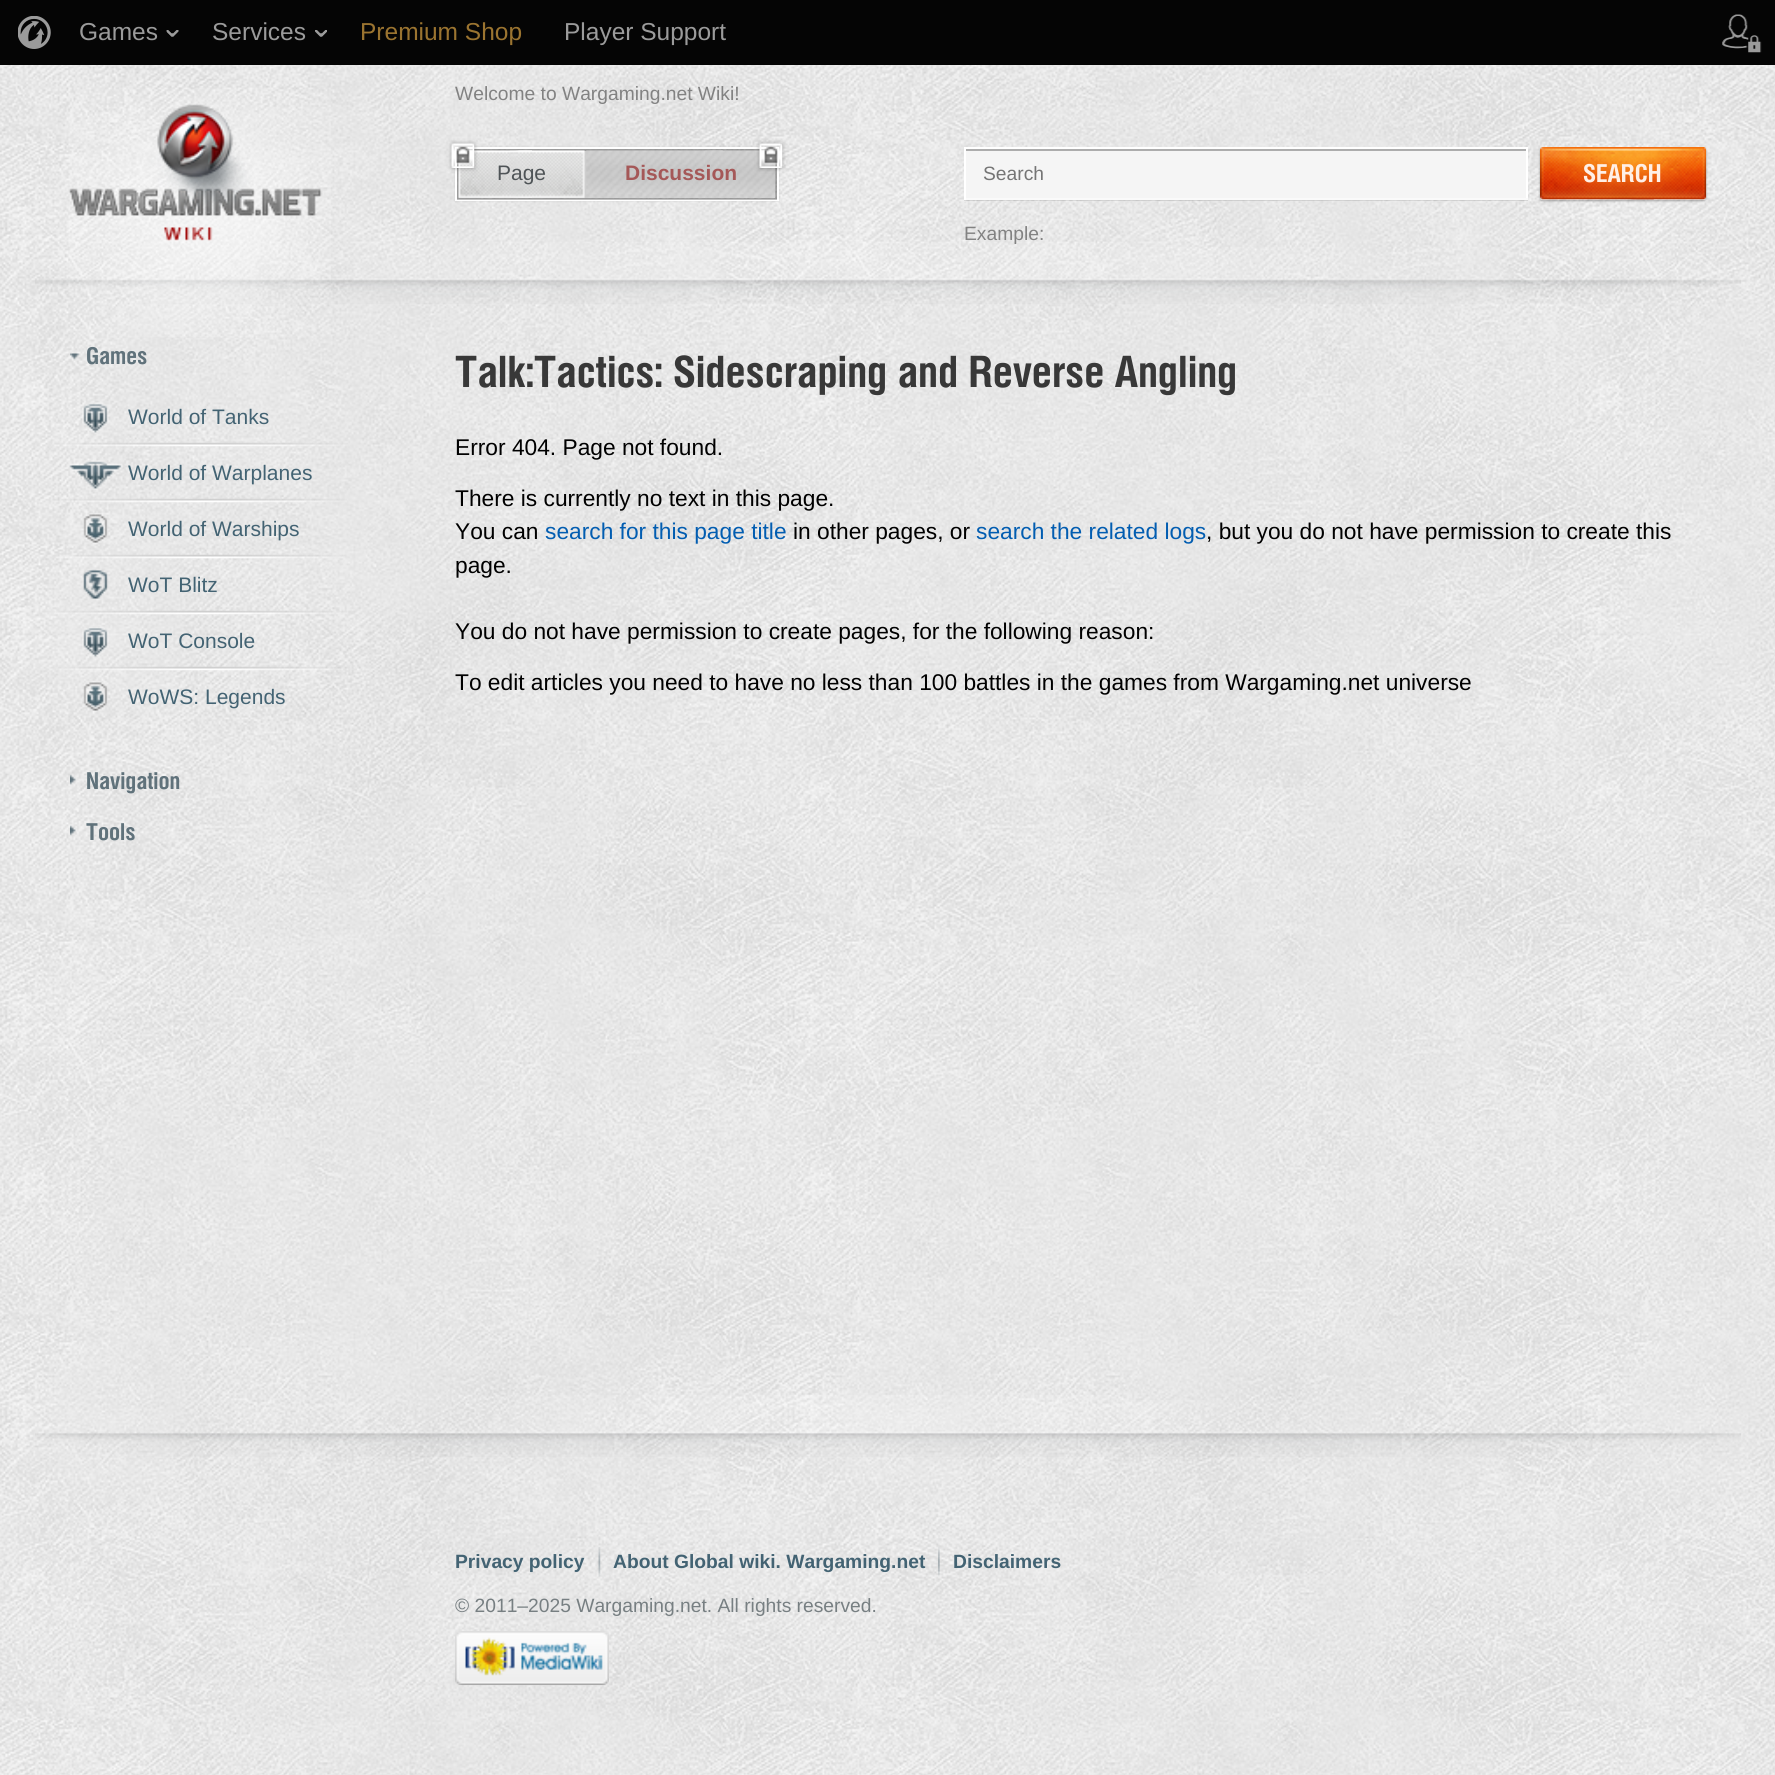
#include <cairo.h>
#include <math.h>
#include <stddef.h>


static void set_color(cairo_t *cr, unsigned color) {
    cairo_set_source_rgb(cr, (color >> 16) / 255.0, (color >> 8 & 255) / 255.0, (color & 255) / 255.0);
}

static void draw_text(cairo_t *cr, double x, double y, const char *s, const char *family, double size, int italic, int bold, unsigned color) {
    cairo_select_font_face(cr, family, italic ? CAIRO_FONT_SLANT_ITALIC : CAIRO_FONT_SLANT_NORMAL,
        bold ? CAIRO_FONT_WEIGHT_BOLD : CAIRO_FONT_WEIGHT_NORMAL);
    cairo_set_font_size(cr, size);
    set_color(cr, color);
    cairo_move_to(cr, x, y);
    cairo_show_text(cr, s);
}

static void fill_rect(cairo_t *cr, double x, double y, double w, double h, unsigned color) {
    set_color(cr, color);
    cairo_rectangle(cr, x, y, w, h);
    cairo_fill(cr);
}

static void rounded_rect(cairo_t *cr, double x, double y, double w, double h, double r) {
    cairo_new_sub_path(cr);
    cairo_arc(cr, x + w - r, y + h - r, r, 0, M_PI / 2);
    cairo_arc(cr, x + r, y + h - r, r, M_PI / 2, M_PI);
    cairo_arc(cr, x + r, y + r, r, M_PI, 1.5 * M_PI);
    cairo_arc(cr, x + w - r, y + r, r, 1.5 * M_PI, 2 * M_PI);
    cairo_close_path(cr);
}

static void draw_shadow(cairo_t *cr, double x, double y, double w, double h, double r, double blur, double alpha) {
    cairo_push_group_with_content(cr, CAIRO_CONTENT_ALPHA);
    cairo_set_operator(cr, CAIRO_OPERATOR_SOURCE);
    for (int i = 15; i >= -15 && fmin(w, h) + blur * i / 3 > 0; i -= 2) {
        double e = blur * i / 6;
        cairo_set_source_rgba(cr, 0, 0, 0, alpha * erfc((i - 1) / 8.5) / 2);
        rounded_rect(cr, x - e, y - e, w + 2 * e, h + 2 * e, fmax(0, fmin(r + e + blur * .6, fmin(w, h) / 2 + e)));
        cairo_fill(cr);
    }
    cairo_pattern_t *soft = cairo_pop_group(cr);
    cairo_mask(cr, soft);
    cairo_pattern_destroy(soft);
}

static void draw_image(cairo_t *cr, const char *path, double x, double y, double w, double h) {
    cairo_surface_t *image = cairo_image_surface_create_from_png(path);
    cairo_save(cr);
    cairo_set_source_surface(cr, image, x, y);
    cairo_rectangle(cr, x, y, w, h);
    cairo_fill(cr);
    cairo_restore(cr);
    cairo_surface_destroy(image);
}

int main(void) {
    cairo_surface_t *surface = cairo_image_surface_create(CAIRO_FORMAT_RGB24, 1775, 1775);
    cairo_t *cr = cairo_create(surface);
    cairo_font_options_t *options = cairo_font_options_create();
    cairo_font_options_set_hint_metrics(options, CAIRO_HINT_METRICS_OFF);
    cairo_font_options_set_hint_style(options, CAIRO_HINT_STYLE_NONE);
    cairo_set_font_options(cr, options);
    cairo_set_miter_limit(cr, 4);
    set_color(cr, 0xFFFFFF);
    cairo_paint(cr);
    draw_image(cr, "assets/img1.png", 0, 65, 1775, 1710);
    fill_rect(cr, 0, 0, 1775, 65, 0x050505);
    cairo_rectangle(cr, -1, -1, 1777, 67);
    cairo_set_source_rgba(cr, 1, 1, 1, 0.1);
    cairo_stroke(cr);
    draw_image(cr, "assets/img2.png", 18, 16, 33, 33);
    draw_text(cr, 79, 40, "Games", "Liberation Sans", 24.5, 0, 0, 0x9B9B9B);
    draw_image(cr, "assets/img3.png", 166, 30, 13, 7);
    draw_text(cr, 212, 40, "Services", "Liberation Sans", 24.5, 0, 0, 0x9B9B9B);
    draw_image(cr, "assets/img4.png", 315, 30, 12, 7);
    draw_text(cr, 360, 40, "Premium Shop", "Liberation Sans", 24.5, 0, 0, 0x9B7430);
    draw_text(cr, 564, 40, "Player Support", "Liberation Sans", 24.5, 0, 0, 0x9B9B9B);
    draw_image(cr, "assets/img5.png", 1722, 14, 40, 39);
    draw_image(cr, "assets/img15.png", 35, 242, 1096, 62);
    draw_image(cr, "assets/img6.png", 69, 88, 262, 249);
    draw_text(cr, 455, 100, "Welcome to Wargaming.net Wiki!", "Liberation Sans", 19.25, 0, 0, 0x828282);
    cairo_set_source_rgba(cr, 0, 0, 0, 0.1);
    cairo_new_path(cr);
    cairo_move_to(cr, 964, 149);
    cairo_line_to(cr, 964, 201);
    cairo_line_to(cr, 1528, 201);
    cairo_line_to(cr, 1528, 149);
    cairo_line_to(cr, 1528, 200);
    cairo_line_to(cr, 964, 200);
    cairo_close_path(cr);
    cairo_fill(cr);
    fill_rect(cr, 966, 151, 560, 47, 0xF5F5F5);
    fill_rect(cr, 966, 149, 560, 2, 0xACACAC);
    fill_rect(cr, 964, 147, 564, 2, 0xFFFFFF);
    fill_rect(cr, 1526, 147, 2, 53, 0xFFFFFF);
    fill_rect(cr, 964, 198, 564, 2, 0xFAFAFA);
    fill_rect(cr, 964, 147, 2, 53, 0xFFFFFF);
    draw_text(cr, 983, 180, "Search", "Liberation Sans", 19.25, 0, 0, 0x757575);
    cairo_save(cr);
    cairo_set_fill_rule(cr, CAIRO_FILL_RULE_EVEN_ODD);
    cairo_new_path(cr);
    cairo_move_to(cr, 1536, 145);
    cairo_line_to(cr, 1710, 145);
    cairo_line_to(cr, 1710, 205);
    cairo_line_to(cr, 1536, 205);
    cairo_close_path(cr);
    cairo_move_to(cr, 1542, 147);
    cairo_line_to(cr, 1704, 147);
    cairo_curve_to(cr, 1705, 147, 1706, 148, 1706, 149);
    cairo_line_to(cr, 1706, 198);
    cairo_curve_to(cr, 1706, 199, 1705, 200, 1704, 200);
    cairo_line_to(cr, 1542, 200);
    cairo_curve_to(cr, 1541, 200, 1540, 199, 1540, 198);
    cairo_line_to(cr, 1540, 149);
    cairo_curve_to(cr, 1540, 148, 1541, 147, 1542, 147);
    cairo_close_path(cr);
    cairo_clip(cr);
    set_color(cr, 0x000000);
    draw_shadow(cr, 1540, 149, 166, 52, 2, 1, 0.3);
    cairo_restore(cr);
    draw_image(cr, "assets/img7.png", 1540, 147, 114, 53);
    draw_image(cr, "assets/img8.png", 1624, 147, 83, 53);
    draw_text(cr, 1583, 182, "SEARCH", "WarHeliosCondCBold", 26, 0, 1, 0xFFEFE6);
    draw_text(cr, 964, 240, "Example:", "Liberation Sans", 19.25, 0, 0, 0x828282);
    set_color(cr, 0x000000);
    draw_shadow(cr, 455, 147, 324, 54, 0, 1, 0.1);
    cairo_rectangle(cr, 456, 148, 322, 52);
    set_color(cr, 0xFFFFFF);
    cairo_stroke(cr);
    cairo_rectangle(cr, 458, 150, 318, 49);
    cairo_set_source_rgba(cr, 0, 0, 0, 0.25);
    cairo_stroke(cr);
    fill_rect(cr, 585, 151, 2, 47, 0xCECECE);
    draw_image(cr, "assets/img10.png", 458, 150, 74, 48);
    cairo_save(cr);
    cairo_set_fill_rule(cr, CAIRO_FILL_RULE_EVEN_ODD);
    cairo_new_path(cr);
    cairo_move_to(cr, 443, 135);
    cairo_line_to(cr, 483, 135);
    cairo_line_to(cr, 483, 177);
    cairo_line_to(cr, 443, 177);
    cairo_close_path(cr);
    cairo_move_to(cr, 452, 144);
    cairo_line_to(cr, 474, 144);
    cairo_line_to(cr, 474, 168);
    cairo_line_to(cr, 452, 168);
    cairo_close_path(cr);
    cairo_clip(cr);
    set_color(cr, 0x151515);
    draw_shadow(cr, 452, 144, 22, 24, 0, 2.5, 0.4);
    cairo_restore(cr);
    draw_image(cr, "assets/img9.png", 451, 143, 24, 25);
    draw_image(cr, "assets/img11.png", 510, 150, 75, 48);
    draw_text(cr, 497, 180, "Page", "Liberation Sans", 21, 0, 0, 0x4F5457);
    draw_image(cr, "assets/img12.png", 586, 150, 137, 48);
    draw_image(cr, "assets/img13.png", 705, 150, 71, 48);
    draw_text(cr, 625, 180, "Discussion", "Liberation Sans", 21, 0, 1, 0xA55858);
    cairo_save(cr);
    cairo_set_fill_rule(cr, CAIRO_FILL_RULE_EVEN_ODD);
    cairo_new_path(cr);
    cairo_move_to(cr, 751, 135);
    cairo_line_to(cr, 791, 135);
    cairo_line_to(cr, 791, 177);
    cairo_line_to(cr, 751, 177);
    cairo_close_path(cr);
    cairo_move_to(cr, 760, 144);
    cairo_line_to(cr, 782, 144);
    cairo_line_to(cr, 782, 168);
    cairo_line_to(cr, 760, 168);
    cairo_close_path(cr);
    cairo_clip(cr);
    set_color(cr, 0x151515);
    draw_shadow(cr, 760, 144, 22, 24, 0, 2.5, 0.4);
    cairo_restore(cr);
    draw_image(cr, "assets/img14.png", 759, 143, 24, 25);
    draw_image(cr, "assets/img16.png", 1130, 247, 611, 57);
    draw_image(cr, "assets/img17.png", 70, 353, 10, 7);
    draw_text(cr, 86, 364, "Games", "WarHeliosCondCBold", 24.5, 0, 1, 0x60727B);
    draw_image(cr, "assets/img18.png", 82, 402, 27, 32);
    draw_text(cr, 128, 424, "World of Tanks", "Liberation Sans", 21, 0, 0, 0x436373);
    draw_image(cr, "assets/img19.png", 53, 442, 295, 5);
    draw_image(cr, "assets/img20.png", 68, 460, 55, 30);
    draw_text(cr, 128, 480, "World of Warplanes", "Liberation Sans", 21, 0, 0, 0x436373);
    draw_image(cr, "assets/img21.png", 51, 498, 296, 5);
    draw_image(cr, "assets/img22.png", 83, 513, 25, 32);
    draw_text(cr, 128, 536, "World of Warships", "Liberation Sans", 21, 0, 0, 0x436373);
    draw_image(cr, "assets/img23.png", 49, 554, 294, 5);
    draw_image(cr, "assets/img24.png", 83, 569, 25, 30);
    draw_text(cr, 128, 592, "WoT Blitz", "Liberation Sans", 21, 0, 0, 0x436373);
    draw_image(cr, "assets/img25.png", 54, 610, 297, 5);
    draw_image(cr, "assets/img26.png", 82, 627, 27, 31);
    draw_text(cr, 128, 648, "WoT Console", "Liberation Sans", 21, 0, 0, 0x436373);
    draw_image(cr, "assets/img27.png", 58, 666, 298, 5);
    draw_image(cr, "assets/img28.png", 83, 681, 25, 32);
    draw_text(cr, 128, 704, "WoWS: Legends", "Liberation Sans", 21, 0, 0, 0x436373);
    draw_image(cr, "assets/img29.png", 70, 774, 6, 11);
    draw_text(cr, 86, 789, "Navigation", "WarHeliosCondCBold", 24.5, 0, 1, 0x60727B);
    draw_image(cr, "assets/img30.png", 70, 825, 6, 11);
    draw_text(cr, 86, 840, "Tools", "WarHeliosCondCBold", 24.5, 0, 1, 0x60727B);
    draw_text(cr, 455, 387, "Talk:Tactics: Sidescraping and Reverse Angling", "WarHeliosCondCBold", 45.5, 0, 1, 0x383838);
    draw_text(cr, 455, 455, "Error 404. Page not found.", "Liberation Sans", 22.75, 0, 0, 0x000000);
    draw_text(cr, 455, 506, "There is currently no text in this page.", "Liberation Sans", 22.75, 0, 0, 0x000000);
    draw_text(cr, 455, 539, "You can", "Liberation Sans", 22.75, 0, 0, 0x000000);
    draw_text(cr, 545, 539, "search for this page title", "Liberation Sans", 22.75, 0, 0, 0x025DB1);
    draw_text(cr, 793, 539, "in other pages, or", "Liberation Sans", 22.75, 0, 0, 0x000000);
    draw_text(cr, 976, 539, "search the related logs", "Liberation Sans", 22.75, 0, 0, 0x025DB1);
    draw_text(cr, 1206, 539, ", but you do not have permission to create this", "Liberation Sans", 22.75, 0, 0, 0x000000);
    draw_text(cr, 455, 573, "page.", "Liberation Sans", 22.75, 0, 0, 0x000000);
    draw_text(cr, 455, 639, "You do not have permission to create pages, for the following reason:", "Liberation Sans", 22.75, 0, 0, 0x000000);
    draw_text(cr, 455, 690, "To edit articles you need to have no less than 100 battles in the games from Wargaming.net universe", "Liberation Sans", 22.75, 0, 0, 0x000000);
    draw_image(cr, "assets/img31.png", 35, 1395, 1096, 62);
    draw_image(cr, "assets/img32.png", 1130, 1400, 611, 57);
    draw_text(cr, 455, 1568, "Privacy policy", "Liberation Sans", 19.25, 0, 1, 0x436373);
    draw_image(cr, "assets/img33.png", 598, 1547, 3, 30);
    draw_text(cr, 613, 1568, "About Global wiki. Wargaming.net", "Liberation Sans", 19.25, 0, 1, 0x436373);
    draw_image(cr, "assets/img34.png", 938, 1547, 2, 30);
    draw_text(cr, 953, 1568, "Disclaimers", "Liberation Sans", 19.25, 0, 1, 0x436373);
    draw_text(cr, 455, 1612, "© 2011–2025 Wargaming.net. All rights reserved.", "Liberation Sans", 19.25, 0, 0, 0x777F82);
    draw_image(cr, "assets/img35.png", 455, 1631, 154, 55);
    cairo_surface_write_to_png(surface, "output.png");
    cairo_font_options_destroy(options);
    cairo_destroy(cr);
    cairo_surface_destroy(surface);
    return 0;
}
